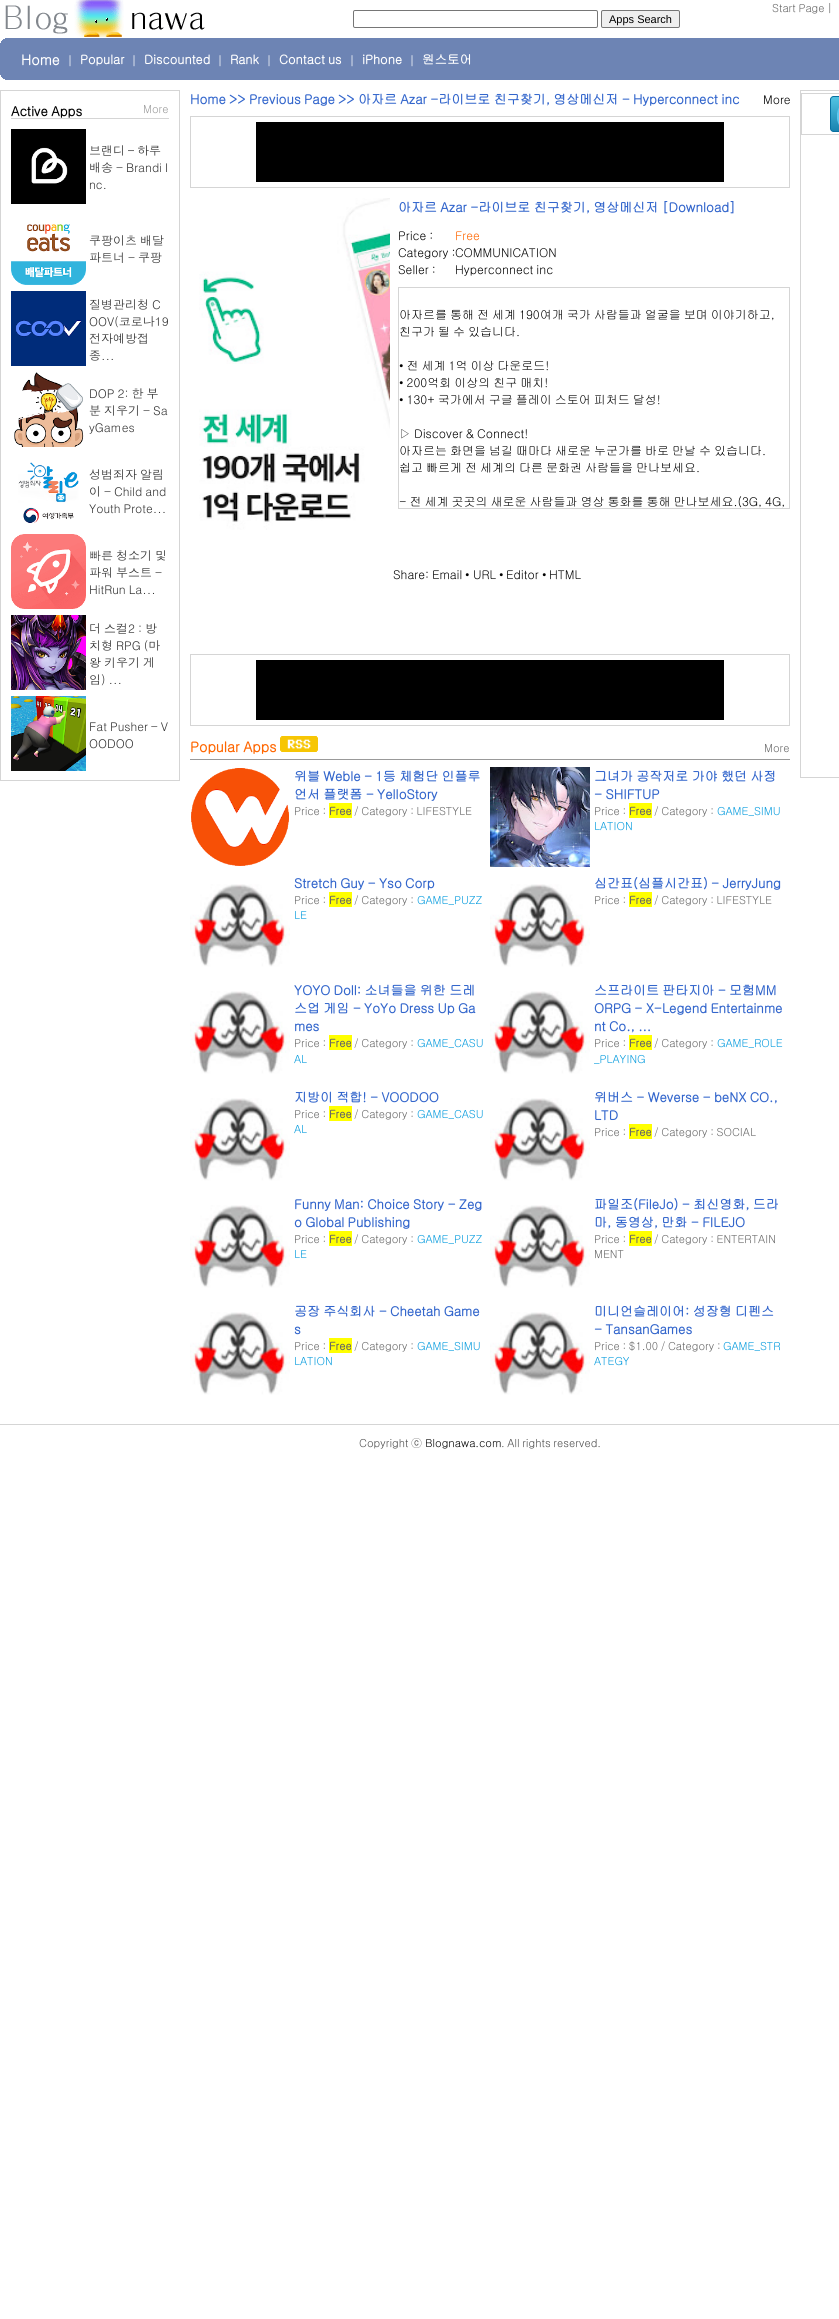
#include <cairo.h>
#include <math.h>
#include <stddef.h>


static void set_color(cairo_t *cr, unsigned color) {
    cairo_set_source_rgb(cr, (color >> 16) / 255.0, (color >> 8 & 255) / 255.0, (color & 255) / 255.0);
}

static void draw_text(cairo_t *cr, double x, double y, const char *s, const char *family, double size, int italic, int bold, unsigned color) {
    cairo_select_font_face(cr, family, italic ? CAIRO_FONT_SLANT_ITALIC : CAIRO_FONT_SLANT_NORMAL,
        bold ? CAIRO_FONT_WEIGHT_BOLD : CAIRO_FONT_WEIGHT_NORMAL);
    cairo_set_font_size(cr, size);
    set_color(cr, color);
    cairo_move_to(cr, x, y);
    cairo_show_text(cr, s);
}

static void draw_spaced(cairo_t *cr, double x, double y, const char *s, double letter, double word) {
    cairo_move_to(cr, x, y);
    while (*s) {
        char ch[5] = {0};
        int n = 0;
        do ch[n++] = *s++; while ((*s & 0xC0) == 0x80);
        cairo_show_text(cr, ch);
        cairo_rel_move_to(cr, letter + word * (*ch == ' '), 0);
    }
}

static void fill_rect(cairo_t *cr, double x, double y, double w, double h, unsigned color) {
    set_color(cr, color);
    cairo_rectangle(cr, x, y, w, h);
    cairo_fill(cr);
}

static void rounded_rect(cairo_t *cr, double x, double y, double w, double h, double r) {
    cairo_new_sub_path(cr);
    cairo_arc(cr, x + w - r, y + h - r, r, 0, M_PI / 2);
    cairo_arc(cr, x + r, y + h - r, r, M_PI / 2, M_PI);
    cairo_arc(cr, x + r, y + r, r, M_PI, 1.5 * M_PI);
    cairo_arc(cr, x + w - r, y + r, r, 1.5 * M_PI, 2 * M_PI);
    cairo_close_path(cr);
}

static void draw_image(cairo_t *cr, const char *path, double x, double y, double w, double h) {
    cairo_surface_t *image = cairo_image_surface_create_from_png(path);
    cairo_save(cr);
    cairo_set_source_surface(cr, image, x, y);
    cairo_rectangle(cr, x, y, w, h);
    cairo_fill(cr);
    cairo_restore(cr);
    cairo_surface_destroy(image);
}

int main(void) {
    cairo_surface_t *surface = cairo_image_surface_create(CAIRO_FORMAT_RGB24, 839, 2319);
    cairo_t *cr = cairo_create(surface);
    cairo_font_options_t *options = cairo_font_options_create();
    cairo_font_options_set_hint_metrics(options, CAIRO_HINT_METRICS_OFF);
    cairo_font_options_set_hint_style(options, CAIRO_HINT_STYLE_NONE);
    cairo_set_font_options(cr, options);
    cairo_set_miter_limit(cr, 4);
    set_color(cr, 0xFFFFFF);
    cairo_paint(cr);
    draw_image(cr, "assets/img1.png", 5, 0, 200, 37);
    cairo_select_font_face(cr, "Gulim", CAIRO_FONT_SLANT_NORMAL, CAIRO_FONT_WEIGHT_NORMAL);
    cairo_set_font_size(cr, 11);
    set_color(cr, 0x666666);
    draw_spaced(cr, 772, 12, "Start Page", 0, -1);
    draw_text(cr, 827, 12, "|", "Gulim", 11, 0, 0, 0x666666);
    rounded_rect(cr, 353.5, 10.5, 244, 17, 1.5);
    set_color(cr, 0x767676);
    cairo_set_line_width(cr, 1);
    cairo_stroke(cr);
    set_color(cr, 0xEFEFEF);
    rounded_rect(cr, 601.5, 10.5, 78, 17, 1.5);
    cairo_fill_preserve(cr);
    set_color(cr, 0x767676);
    cairo_stroke(cr);
    draw_text(cr, 609, 23, "Apps Search", "Liberation Sans", 11, 0, 0, 0x000000);
    fill_rect(cr, 0, 43, 839, 32, 0x6D84B4);
    fill_rect(cr, 5, 38, 834, 1, 0x6D84B4);
    fill_rect(cr, 3, 39, 836, 1, 0x6D84B4);
    fill_rect(cr, 2, 40, 837, 1, 0x6D84B4);
    fill_rect(cr, 1, 41, 838, 2, 0x6D84B4);
    draw_text(cr, 21, 65, "Home", "Gulim", 14, 0, 1, 0xFFFFFF);
    draw_text(cr, 67, 65, "|", "Gulim", 12, 0, 0, 0xFFFFFF);
    draw_text(cr, 80, 64, "Popular", "Gulim", 12.5, 0, 1, 0xFFFFFF);
    draw_text(cr, 131, 65, "|", "Gulim", 12, 0, 0, 0xFFFFFF);
    draw_text(cr, 144, 64, "Discounted", "Gulim", 12.5, 0, 1, 0xFFFFFF);
    draw_text(cr, 217, 65, "|", "Gulim", 12, 0, 0, 0xFFFFFF);
    draw_text(cr, 230, 64, "Rank", "Gulim", 12.5, 0, 1, 0xFFFFFF);
    draw_text(cr, 266, 65, "|", "Gulim", 12, 0, 0, 0xFFFFFF);
    cairo_select_font_face(cr, "Gulim", CAIRO_FONT_SLANT_NORMAL, CAIRO_FONT_WEIGHT_BOLD);
    cairo_set_font_size(cr, 12.5);
    draw_spaced(cr, 279, 64, "Contact us", 0, -1);
    draw_text(cr, 349, 65, "|", "Gulim", 12, 0, 0, 0xFFFFFF);
    draw_text(cr, 362, 64, "iPhone", "Gulim", 12.5, 0, 1, 0xFFFFFF);
    draw_text(cr, 409, 65, "|", "Gulim", 12, 0, 0, 0xFFFFFF);
    draw_text(cr, 422, 64, "원스토어", "Gulim", 12.5, 0, 1, 0xFFFFFF);
    fill_rect(cr, 1, 75, 838, 2, 0x6D84B4);
    fill_rect(cr, 2, 77, 837, 1, 0x6D84B4);
    fill_rect(cr, 3, 78, 836, 1, 0x6D84B4);
    fill_rect(cr, 5, 79, 834, 1, 0x6D84B4);
    cairo_rectangle(cr, 0.5, 90.5, 179, 690);
    set_color(cr, 0xD5D5D5);
    cairo_stroke(cr);
    fill_rect(cr, 11, 118, 158, 1, 0xD5D5D5);
    cairo_set_font_size(cr, 13);
    set_color(cr, 0x000000);
    draw_spaced(cr, 11, 116, "Active Apps", 0, -1);
    draw_text(cr, 143, 113, "More", "Gulim", 11, 0, 0, 0x999999);
    draw_image(cr, "assets/img2.png", 11, 129, 75, 75);
    cairo_select_font_face(cr, "Dotum", CAIRO_FONT_SLANT_NORMAL, CAIRO_FONT_WEIGHT_NORMAL);
    cairo_set_font_size(cr, 12);
    set_color(cr, 0x333333);
    draw_spaced(cr, 89, 155, "브랜디 – 하루", 0, -1);
    draw_spaced(cr, 89, 172, "배송 - Brandi", 0, -1);
    draw_text(cr, 165, 172, "I", "Dotum", 12, 0, 0, 0x333333);
    draw_text(cr, 89, 189, "nc.", "Dotum", 12, 0, 0, 0x333333);
    draw_image(cr, "assets/img3.png", 11, 224, 75, 61);
    draw_spaced(cr, 89, 245, "쿠팡이츠 배달", 0, -1);
    draw_spaced(cr, 89, 262, "파트너 - 쿠팡", 0, -1);
    draw_image(cr, "assets/img4.png", 11, 291, 75, 75);
    draw_spaced(cr, 89, 309, "질병관리청 C", 0, -1);
    draw_text(cr, 89, 326, "OOV(코로나19", "Dotum", 12, 0, 0, 0x333333);
    draw_text(cr, 89, 343, "전자예방접", "Dotum", 12, 0, 0, 0x333333);
    draw_text(cr, 89, 360, "종...", "Dotum", 12, 0, 0, 0x333333);
    draw_image(cr, "assets/img5.png", 14, 372, 70, 75);
    draw_spaced(cr, 89, 398, "DOP 2: 한 부", 0, -1);
    draw_spaced(cr, 89, 415, "분 지우기 - Sa", 0, -1);
    draw_text(cr, 89, 432, "yGames", "Dotum", 12, 0, 0, 0x333333);
    draw_image(cr, "assets/img6.png", 18, 462, 61, 61);
    draw_spaced(cr, 89, 479, "성범죄자 알림", 0, -1);
    draw_spaced(cr, 89, 496, "이 - Child and", 0, -1);
    draw_spaced(cr, 89, 513, "Youth Prote...", 0, -1);
    draw_image(cr, "assets/img7.png", 11, 534, 75, 75);
    draw_spaced(cr, 89, 560, "빠른 청소기 및", 0, -1);
    draw_spaced(cr, 89, 577, "파워 부스트 -", 0, -1);
    draw_spaced(cr, 89, 594, "HitRun La...", 0, -1);
    draw_image(cr, "assets/img8.png", 11, 615, 75, 75);
    draw_spaced(cr, 89, 633, "더 스컬2 : 방", 0, -1);
    draw_spaced(cr, 89, 650, "치형 RPG (마", 0, -1);
    draw_spaced(cr, 89, 667, "왕 키우기 게", 0, -1);
    draw_spaced(cr, 89, 684, "임) ...", 0, -1);
    draw_image(cr, "assets/img9.png", 11, 696, 75, 75);
    draw_spaced(cr, 89, 731, "Fat Pusher - V", 0, -1);
    draw_text(cr, 89, 748, "OODOO", "Dotum", 12, 0, 0, 0x333333);
    draw_text(cr, 190, 104, "Home", "Gulim", 13, 0, 1, 0x3366CC);
    draw_text(cr, 229, 104, ">>", "Gulim", 13, 0, 1, 0x3366CC);
    draw_spaced(cr, 249, 104, "Previous Page", 0, -1);
    draw_text(cr, 338, 104, ">>", "Gulim", 13, 0, 1, 0x3366CC);
    draw_spaced(cr, 358, 104, "아자르 Azar -라이브로 친구찾기, 영상메신저 - Hyperconnect inc", 0, -1);
    draw_text(cr, 763, 104, "More", "Dotum", 12, 0, 0, 0x000000);
    cairo_rectangle(cr, 190.5, 116.5, 599, 71);
    set_color(cr, 0xD5D5D5);
    cairo_stroke(cr);
    fill_rect(cr, 256, 122, 468, 60, 0x000000);
    draw_image(cr, "assets/img10.png", 199, 198, 191, 332);
    cairo_select_font_face(cr, "Gulim", CAIRO_FONT_SLANT_NORMAL, CAIRO_FONT_WEIGHT_BOLD);
    cairo_set_font_size(cr, 13);
    set_color(cr, 0x3366CC);
    draw_spaced(cr, 398, 212, "아자르 Azar -라이브로 친구찾기, 영상메신저", 0, -1);
    draw_text(cr, 662, 212, "[Download]", "Gulim", 13, 0, 1, 0x3366CC);
    cairo_select_font_face(cr, "Gulim", CAIRO_FONT_SLANT_NORMAL, CAIRO_FONT_WEIGHT_NORMAL);
    cairo_set_font_size(cr, 12);
    set_color(cr, 0x000000);
    draw_spaced(cr, 398, 240, "Price :", 0, -1);
    draw_text(cr, 455, 240, "Free", "Gulim", 12, 0, 0, 0xFF6600);
    set_color(cr, 0x000000);
    draw_spaced(cr, 398, 257, "Category :", 0, -1);
    draw_text(cr, 455, 257, "COMMUNICATION", "Gulim", 12, 0, 0, 0x000000);
    draw_spaced(cr, 398, 274, "Seller :", 0, -1);
    draw_spaced(cr, 455, 274, "Hyperconnect inc", 0, -1);
    cairo_rectangle(cr, 398.5, 287.5, 391, 221);
    set_color(cr, 0xD5D5D5);
    cairo_stroke(cr);
    set_color(cr, 0x000000);
    draw_spaced(cr, 399, 319, "아자르를 통해 전 세계 190여개 국가 사람들과 얼굴을 보며 이야기하고,", 0, -1);
    draw_spaced(cr, 399, 336, "친구가 될 수 있습니다.", 0, -1);
    draw_spaced(cr, 399, 370, "• 전 세계 1억 이상 다운로드!", 0, -1);
    draw_spaced(cr, 399, 387, "• 200억회 이상의 친구 매치!", 0, -1);
    draw_spaced(cr, 399, 404, "• 130+ 국가에서 구글 플레이 스토어 피처드 달성!", 0, -1);
    draw_spaced(cr, 399, 438, "▷ Discover & Connect!", 0, -1);
    draw_spaced(cr, 399, 455, "아자르는 화면을 넘길 때마다 새로운 누군가를 바로 만날 수 있습니다.", 0, -1);
    draw_spaced(cr, 399, 472, "쉽고 빠르게 전 세계의 다른 문화권 사람들을 만나보세요.", 0, -1);
    draw_spaced(cr, 399, 506, "- 전 세계 곳곳의 새로운 사람들과 영상 통화를 통해 만나보세요.(3G, 4G,", 0, -1);
    draw_text(cr, 393, 579, "Share:", "Gulim", 12, 0, 0, 0x000000);
    draw_text(cr, 432, 579, "Email", "Gulim", 12, 0, 0, 0x000000);
    draw_text(cr, 465, 579, "•", "Gulim", 12, 0, 0, 0x000000);
    draw_text(cr, 473, 579, "URL", "Gulim", 12, 0, 0, 0x000000);
    draw_text(cr, 499, 579, "•", "Gulim", 12, 0, 0, 0x000000);
    draw_text(cr, 506, 579, "Editor", "Gulim", 12, 0, 0, 0x000000);
    draw_text(cr, 542, 579, "•", "Gulim", 12, 0, 0, 0x000000);
    draw_text(cr, 549, 579, "HTML", "Gulim", 12, 0, 0, 0x000000);
    cairo_rectangle(cr, 190.5, 654.5, 599, 71);
    set_color(cr, 0xD5D5D5);
    cairo_stroke(cr);
    fill_rect(cr, 256, 660, 468, 60, 0x000000);
    cairo_select_font_face(cr, "Gulim", CAIRO_FONT_SLANT_NORMAL, CAIRO_FONT_WEIGHT_BOLD);
    cairo_set_font_size(cr, 14);
    set_color(cr, 0xFF6600);
    draw_spaced(cr, 190, 752, "Popular Apps", 0, -1);
    draw_image(cr, "assets/img11.png", 280, 736, 38, 16);
    draw_text(cr, 764, 752, "More", "Gulim", 11, 0, 0, 0x666666);
    fill_rect(cr, 190, 759, 600, 1, 0x999999);
    draw_image(cr, "assets/img12.png", 191, 768, 98, 98);
    cairo_select_font_face(cr, "Gulim", CAIRO_FONT_SLANT_NORMAL, CAIRO_FONT_WEIGHT_BOLD);
    cairo_set_font_size(cr, 13);
    set_color(cr, 0x3366CC);
    draw_spaced(cr, 294, 781, "위블 Weble - 1등 체험단 인플루", 0, -1);
    draw_spaced(cr, 294, 799, "언서 플랫폼 - YelloStory", 0, -1);
    cairo_select_font_face(cr, "Gulim", CAIRO_FONT_SLANT_NORMAL, CAIRO_FONT_WEIGHT_NORMAL);
    cairo_set_font_size(cr, 11);
    set_color(cr, 0x666666);
    draw_spaced(cr, 294, 815, "Price :", 0, -1);
    fill_rect(cr, 329, 803, 23, 15, 0xFFFF00);
    draw_text(cr, 329, 815, "Free", "Gulim", 11, 0, 1, 0x666666);
    cairo_select_font_face(cr, "Gulim", CAIRO_FONT_SLANT_NORMAL, CAIRO_FONT_WEIGHT_NORMAL);
    draw_spaced(cr, 354, 815, "/ Category : LIFESTYLE", 0, -1);
    draw_image(cr, "assets/img13.png", 490, 767, 100, 100);
    cairo_select_font_face(cr, "Gulim", CAIRO_FONT_SLANT_NORMAL, CAIRO_FONT_WEIGHT_BOLD);
    cairo_set_font_size(cr, 13);
    set_color(cr, 0x3366CC);
    draw_spaced(cr, 594, 781, "그녀가 공작저로 가야 했던 사정", 0, -1);
    draw_spaced(cr, 594, 799, "- SHIFTUP", 0, -1);
    cairo_select_font_face(cr, "Gulim", CAIRO_FONT_SLANT_NORMAL, CAIRO_FONT_WEIGHT_NORMAL);
    cairo_set_font_size(cr, 11);
    set_color(cr, 0x666666);
    draw_spaced(cr, 594, 815, "Price :", 0, -1);
    fill_rect(cr, 629, 803, 23, 15, 0xFFFF00);
    draw_text(cr, 629, 815, "Free", "Gulim", 11, 0, 1, 0x666666);
    cairo_select_font_face(cr, "Gulim", CAIRO_FONT_SLANT_NORMAL, CAIRO_FONT_WEIGHT_NORMAL);
    draw_spaced(cr, 654, 815, "/ Category :", 0, -1);
    draw_text(cr, 717, 815, "GAME_SIMU", "Gulim", 11, 0, 0, 0x0099DD);
    draw_text(cr, 594, 830, "LATION", "Gulim", 11, 0, 0, 0x0099DD);
    draw_image(cr, "assets/img14.png", 190, 884, 100, 83);
    cairo_select_font_face(cr, "Gulim", CAIRO_FONT_SLANT_NORMAL, CAIRO_FONT_WEIGHT_BOLD);
    cairo_set_font_size(cr, 13);
    set_color(cr, 0x3366CC);
    draw_spaced(cr, 294, 888, "Stretch Guy - Yso Corp", 0, -1);
    cairo_select_font_face(cr, "Gulim", CAIRO_FONT_SLANT_NORMAL, CAIRO_FONT_WEIGHT_NORMAL);
    cairo_set_font_size(cr, 11);
    set_color(cr, 0x666666);
    draw_spaced(cr, 294, 904, "Price :", 0, -1);
    fill_rect(cr, 329, 892, 23, 15, 0xFFFF00);
    draw_text(cr, 329, 904, "Free", "Gulim", 11, 0, 1, 0x666666);
    cairo_select_font_face(cr, "Gulim", CAIRO_FONT_SLANT_NORMAL, CAIRO_FONT_WEIGHT_NORMAL);
    draw_spaced(cr, 354, 904, "/ Category :", 0, -1);
    draw_text(cr, 417, 904, "GAME_PUZZ", "Gulim", 11, 0, 0, 0x0099DD);
    draw_text(cr, 294, 919, "LE", "Gulim", 11, 0, 0, 0x0099DD);
    draw_image(cr, "assets/img14.png", 490, 884, 100, 83);
    cairo_select_font_face(cr, "Gulim", CAIRO_FONT_SLANT_NORMAL, CAIRO_FONT_WEIGHT_BOLD);
    cairo_set_font_size(cr, 13);
    set_color(cr, 0x3366CC);
    draw_spaced(cr, 594, 888, "심간표(심플시간표) - JerryJung", 0, -1);
    cairo_select_font_face(cr, "Gulim", CAIRO_FONT_SLANT_NORMAL, CAIRO_FONT_WEIGHT_NORMAL);
    cairo_set_font_size(cr, 11);
    set_color(cr, 0x666666);
    draw_spaced(cr, 594, 904, "Price :", 0, -1);
    fill_rect(cr, 629, 892, 23, 15, 0xFFFF00);
    draw_text(cr, 629, 904, "Free", "Gulim", 11, 0, 1, 0x666666);
    cairo_select_font_face(cr, "Gulim", CAIRO_FONT_SLANT_NORMAL, CAIRO_FONT_WEIGHT_NORMAL);
    draw_spaced(cr, 654, 904, "/ Category : LIFESTYLE", 0, -1);
    draw_image(cr, "assets/img15.png", 190, 991, 100, 83);
    cairo_select_font_face(cr, "Gulim", CAIRO_FONT_SLANT_NORMAL, CAIRO_FONT_WEIGHT_BOLD);
    cairo_set_font_size(cr, 13);
    set_color(cr, 0x3366CC);
    draw_spaced(cr, 294, 995, "YOYO Doll: 소녀들을 위한 드레", 0, -1);
    draw_spaced(cr, 294, 1013, "스업 게임 - YoYo Dress Up Ga", 0, -1);
    draw_text(cr, 294, 1031, "mes", "Gulim", 13, 0, 1, 0x3366CC);
    cairo_select_font_face(cr, "Gulim", CAIRO_FONT_SLANT_NORMAL, CAIRO_FONT_WEIGHT_NORMAL);
    cairo_set_font_size(cr, 11);
    set_color(cr, 0x666666);
    draw_spaced(cr, 294, 1047, "Price :", 0, -1);
    fill_rect(cr, 329, 1035, 23, 15, 0xFFFF00);
    draw_text(cr, 329, 1047, "Free", "Gulim", 11, 0, 1, 0x666666);
    cairo_select_font_face(cr, "Gulim", CAIRO_FONT_SLANT_NORMAL, CAIRO_FONT_WEIGHT_NORMAL);
    draw_spaced(cr, 354, 1047, "/ Category :", 0, -1);
    draw_text(cr, 417, 1047, "GAME_CASU", "Gulim", 11, 0, 0, 0x0099DD);
    draw_text(cr, 294, 1063, "AL", "Gulim", 11, 0, 0, 0x0099DD);
    draw_image(cr, "assets/img15.png", 490, 991, 100, 83);
    cairo_select_font_face(cr, "Gulim", CAIRO_FONT_SLANT_NORMAL, CAIRO_FONT_WEIGHT_BOLD);
    cairo_set_font_size(cr, 13);
    set_color(cr, 0x3366CC);
    draw_spaced(cr, 594, 995, "스프라이트 판타지아 - 모험MM", 0, -1);
    draw_spaced(cr, 594, 1013, "ORPG - X-Legend Entertainme", 0, -1);
    draw_spaced(cr, 594, 1031, "nt Co., ...", 0, -1);
    cairo_select_font_face(cr, "Gulim", CAIRO_FONT_SLANT_NORMAL, CAIRO_FONT_WEIGHT_NORMAL);
    cairo_set_font_size(cr, 11);
    set_color(cr, 0x666666);
    draw_spaced(cr, 594, 1047, "Price :", 0, -1);
    fill_rect(cr, 629, 1035, 23, 15, 0xFFFF00);
    draw_text(cr, 629, 1047, "Free", "Gulim", 11, 0, 1, 0x666666);
    cairo_select_font_face(cr, "Gulim", CAIRO_FONT_SLANT_NORMAL, CAIRO_FONT_WEIGHT_NORMAL);
    draw_spaced(cr, 654, 1047, "/ Category :", 0, -1);
    draw_text(cr, 717, 1047, "GAME_ROLE", "Gulim", 11, 0, 0, 0x0099DD);
    draw_text(cr, 594, 1063, "_PLAYING", "Gulim", 11, 0, 0, 0x0099DD);
    draw_image(cr, "assets/img15.png", 190, 1098, 100, 83);
    cairo_select_font_face(cr, "Gulim", CAIRO_FONT_SLANT_NORMAL, CAIRO_FONT_WEIGHT_BOLD);
    cairo_set_font_size(cr, 13);
    set_color(cr, 0x3366CC);
    draw_spaced(cr, 294, 1102, "지방이 적합! - VOODOO", 0, -1);
    cairo_select_font_face(cr, "Gulim", CAIRO_FONT_SLANT_NORMAL, CAIRO_FONT_WEIGHT_NORMAL);
    cairo_set_font_size(cr, 11);
    set_color(cr, 0x666666);
    draw_spaced(cr, 294, 1118, "Price :", 0, -1);
    fill_rect(cr, 329, 1106, 23, 15, 0xFFFF00);
    draw_text(cr, 329, 1118, "Free", "Gulim", 11, 0, 1, 0x666666);
    cairo_select_font_face(cr, "Gulim", CAIRO_FONT_SLANT_NORMAL, CAIRO_FONT_WEIGHT_NORMAL);
    draw_spaced(cr, 354, 1118, "/ Category :", 0, -1);
    draw_text(cr, 417, 1118, "GAME_CASU", "Gulim", 11, 0, 0, 0x0099DD);
    draw_text(cr, 294, 1133, "AL", "Gulim", 11, 0, 0, 0x0099DD);
    draw_image(cr, "assets/img15.png", 490, 1098, 100, 83);
    cairo_select_font_face(cr, "Gulim", CAIRO_FONT_SLANT_NORMAL, CAIRO_FONT_WEIGHT_BOLD);
    cairo_set_font_size(cr, 13);
    set_color(cr, 0x3366CC);
    draw_spaced(cr, 594, 1102, "위버스 - Weverse - beNX CO.,", 0, -1);
    draw_text(cr, 594, 1120, "LTD", "Gulim", 13, 0, 1, 0x3366CC);
    cairo_select_font_face(cr, "Gulim", CAIRO_FONT_SLANT_NORMAL, CAIRO_FONT_WEIGHT_NORMAL);
    cairo_set_font_size(cr, 11);
    set_color(cr, 0x666666);
    draw_spaced(cr, 594, 1136, "Price :", 0, -1);
    fill_rect(cr, 629, 1124, 23, 15, 0xFFFF00);
    draw_text(cr, 629, 1136, "Free", "Gulim", 11, 0, 1, 0x666666);
    cairo_select_font_face(cr, "Gulim", CAIRO_FONT_SLANT_NORMAL, CAIRO_FONT_WEIGHT_NORMAL);
    draw_spaced(cr, 654, 1136, "/ Category : SOCIAL", 0, -1);
    draw_image(cr, "assets/img15.png", 190, 1205, 100, 83);
    cairo_select_font_face(cr, "Gulim", CAIRO_FONT_SLANT_NORMAL, CAIRO_FONT_WEIGHT_BOLD);
    cairo_set_font_size(cr, 13);
    set_color(cr, 0x3366CC);
    draw_spaced(cr, 294, 1209, "Funny Man: Choice Story - Zeg", 0, -1);
    draw_spaced(cr, 294, 1227, "o Global Publishing", 0, -1);
    cairo_select_font_face(cr, "Gulim", CAIRO_FONT_SLANT_NORMAL, CAIRO_FONT_WEIGHT_NORMAL);
    cairo_set_font_size(cr, 11);
    set_color(cr, 0x666666);
    draw_spaced(cr, 294, 1243, "Price :", 0, -1);
    fill_rect(cr, 329, 1231, 23, 15, 0xFFFF00);
    draw_text(cr, 329, 1243, "Free", "Gulim", 11, 0, 1, 0x666666);
    cairo_select_font_face(cr, "Gulim", CAIRO_FONT_SLANT_NORMAL, CAIRO_FONT_WEIGHT_NORMAL);
    draw_spaced(cr, 354, 1243, "/ Category :", 0, -1);
    draw_text(cr, 417, 1243, "GAME_PUZZ", "Gulim", 11, 0, 0, 0x0099DD);
    draw_text(cr, 294, 1258, "LE", "Gulim", 11, 0, 0, 0x0099DD);
    draw_image(cr, "assets/img15.png", 490, 1205, 100, 83);
    cairo_select_font_face(cr, "Gulim", CAIRO_FONT_SLANT_NORMAL, CAIRO_FONT_WEIGHT_BOLD);
    cairo_set_font_size(cr, 13);
    set_color(cr, 0x3366CC);
    draw_spaced(cr, 594, 1209, "파일조(FileJo) - 최신영화, 드라", 0, -1);
    draw_spaced(cr, 594, 1227, "마, 동영상, 만화 - FILEJO", 0, -1);
    cairo_select_font_face(cr, "Gulim", CAIRO_FONT_SLANT_NORMAL, CAIRO_FONT_WEIGHT_NORMAL);
    cairo_set_font_size(cr, 11);
    set_color(cr, 0x666666);
    draw_spaced(cr, 594, 1243, "Price :", 0, -1);
    fill_rect(cr, 629, 1231, 23, 15, 0xFFFF00);
    draw_text(cr, 629, 1243, "Free", "Gulim", 11, 0, 1, 0x666666);
    cairo_select_font_face(cr, "Gulim", CAIRO_FONT_SLANT_NORMAL, CAIRO_FONT_WEIGHT_NORMAL);
    draw_spaced(cr, 654, 1243, "/ Category : ENTERTAIN", 0, -1);
    draw_text(cr, 594, 1258, "MENT", "Gulim", 11, 0, 0, 0x666666);
    draw_image(cr, "assets/img15.png", 190, 1312, 100, 83);
    cairo_select_font_face(cr, "Gulim", CAIRO_FONT_SLANT_NORMAL, CAIRO_FONT_WEIGHT_BOLD);
    cairo_set_font_size(cr, 13);
    set_color(cr, 0x3366CC);
    draw_spaced(cr, 294, 1316, "공장 주식회사 - Cheetah Game", 0, -1);
    draw_text(cr, 294, 1334, "s", "Gulim", 13, 0, 1, 0x3366CC);
    cairo_select_font_face(cr, "Gulim", CAIRO_FONT_SLANT_NORMAL, CAIRO_FONT_WEIGHT_NORMAL);
    cairo_set_font_size(cr, 11);
    set_color(cr, 0x666666);
    draw_spaced(cr, 294, 1350, "Price :", 0, -1);
    fill_rect(cr, 329, 1338, 23, 15, 0xFFFF00);
    draw_text(cr, 329, 1350, "Free", "Gulim", 11, 0, 1, 0x666666);
    cairo_select_font_face(cr, "Gulim", CAIRO_FONT_SLANT_NORMAL, CAIRO_FONT_WEIGHT_NORMAL);
    draw_spaced(cr, 354, 1350, "/ Category :", 0, -1);
    draw_text(cr, 417, 1350, "GAME_SIMU", "Gulim", 11, 0, 0, 0x0099DD);
    draw_text(cr, 294, 1365, "LATION", "Gulim", 11, 0, 0, 0x0099DD);
    draw_image(cr, "assets/img15.png", 490, 1312, 100, 83);
    cairo_select_font_face(cr, "Gulim", CAIRO_FONT_SLANT_NORMAL, CAIRO_FONT_WEIGHT_BOLD);
    cairo_set_font_size(cr, 13);
    set_color(cr, 0x3366CC);
    draw_spaced(cr, 594, 1316, "미니언슬레이어: 성장형 디펜스", 0, -1);
    draw_spaced(cr, 594, 1334, "- TansanGames", 0, -1);
    cairo_select_font_face(cr, "Gulim", CAIRO_FONT_SLANT_NORMAL, CAIRO_FONT_WEIGHT_NORMAL);
    cairo_set_font_size(cr, 11);
    set_color(cr, 0x666666);
    draw_spaced(cr, 594, 1350, "Price : $1.00 / Category :", 0, -1);
    draw_text(cr, 723, 1350, "GAME_STR", "Gulim", 11, 0, 0, 0x0099DD);
    draw_text(cr, 594, 1365, "ATEGY", "Gulim", 11, 0, 0, 0x0099DD);
    cairo_rectangle(cr, 800.5, 90.5, 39, 687);
    set_color(cr, 0xD5D5D5);
    cairo_stroke(cr);
    cairo_rectangle(cr, 801.5, 93.5, 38, 41);
    cairo_stroke(cr);
    draw_image(cr, "assets/img16.png", 830, 96, 9, 36);
    fill_rect(cr, 0, 1424, 839, 1, 0xD5D5D5);
    set_color(cr, 0x4D4D4D);
    draw_spaced(cr, 359, 1447, "Copyright ⓒ", 0, -1);
    draw_text(cr, 425, 1447, "Blognawa.com", "Gulim", 11, 0, 0, 0x000000);
    set_color(cr, 0x4D4D4D);
    draw_spaced(cr, 501, 1447, ". All rights reserved.", 0, -1);
    cairo_surface_write_to_png(surface, "output.png");
    cairo_font_options_destroy(options);
    cairo_destroy(cr);
    cairo_surface_destroy(surface);
    return 0;
}
